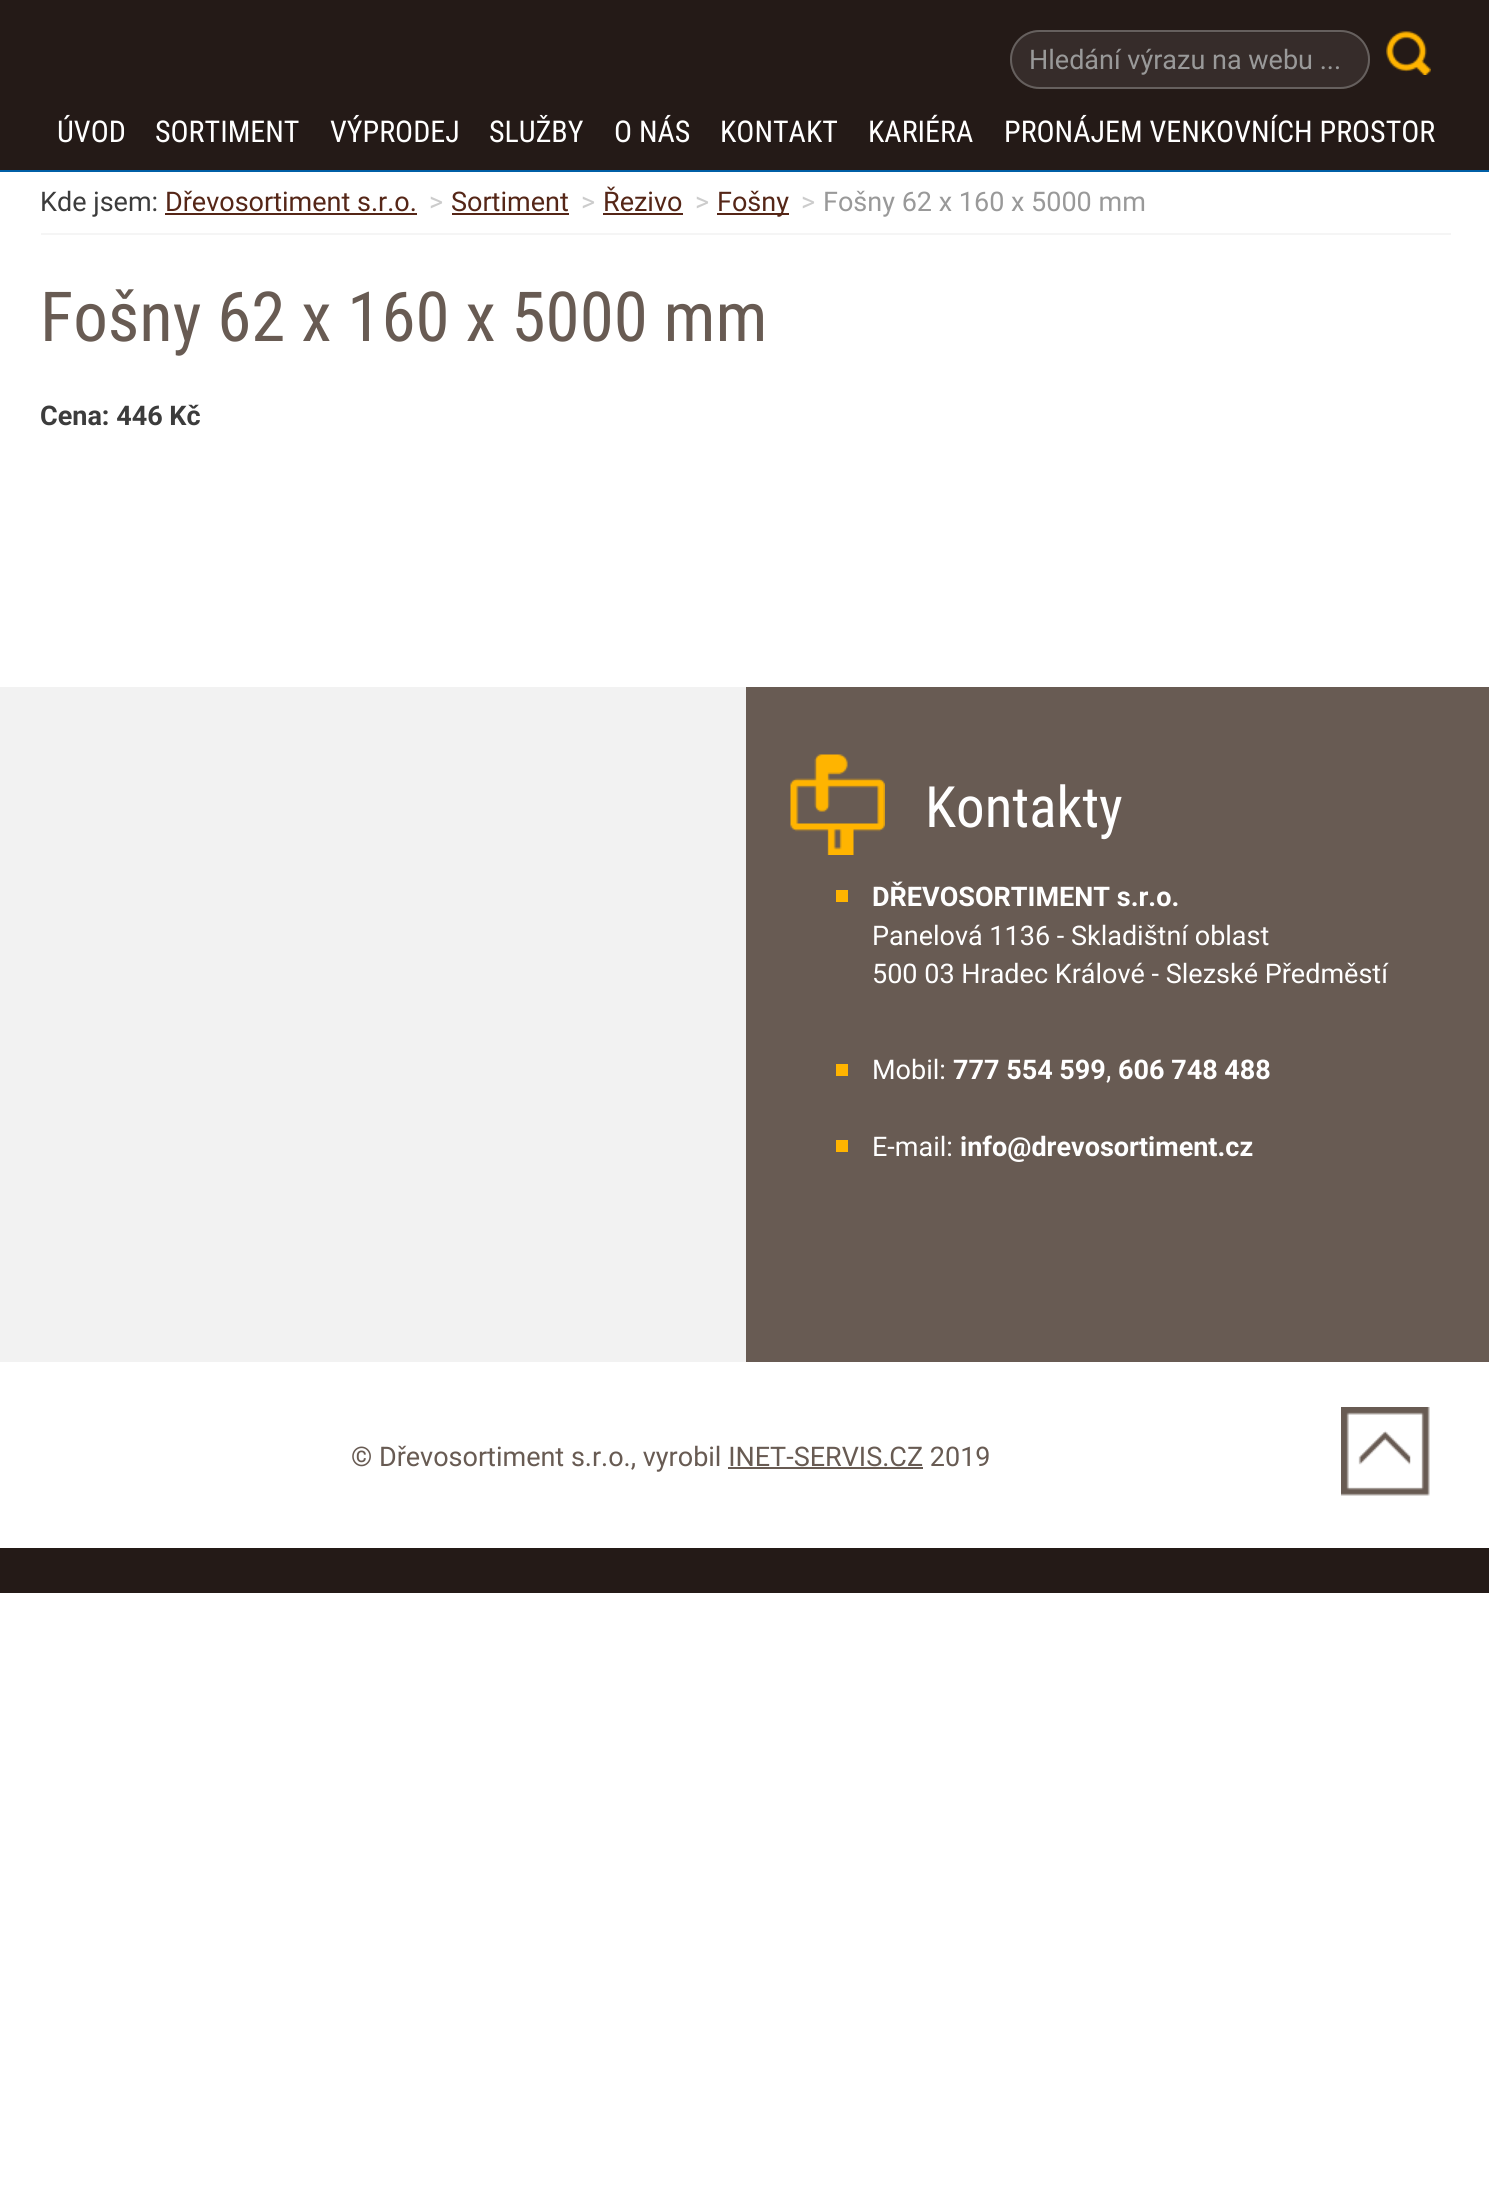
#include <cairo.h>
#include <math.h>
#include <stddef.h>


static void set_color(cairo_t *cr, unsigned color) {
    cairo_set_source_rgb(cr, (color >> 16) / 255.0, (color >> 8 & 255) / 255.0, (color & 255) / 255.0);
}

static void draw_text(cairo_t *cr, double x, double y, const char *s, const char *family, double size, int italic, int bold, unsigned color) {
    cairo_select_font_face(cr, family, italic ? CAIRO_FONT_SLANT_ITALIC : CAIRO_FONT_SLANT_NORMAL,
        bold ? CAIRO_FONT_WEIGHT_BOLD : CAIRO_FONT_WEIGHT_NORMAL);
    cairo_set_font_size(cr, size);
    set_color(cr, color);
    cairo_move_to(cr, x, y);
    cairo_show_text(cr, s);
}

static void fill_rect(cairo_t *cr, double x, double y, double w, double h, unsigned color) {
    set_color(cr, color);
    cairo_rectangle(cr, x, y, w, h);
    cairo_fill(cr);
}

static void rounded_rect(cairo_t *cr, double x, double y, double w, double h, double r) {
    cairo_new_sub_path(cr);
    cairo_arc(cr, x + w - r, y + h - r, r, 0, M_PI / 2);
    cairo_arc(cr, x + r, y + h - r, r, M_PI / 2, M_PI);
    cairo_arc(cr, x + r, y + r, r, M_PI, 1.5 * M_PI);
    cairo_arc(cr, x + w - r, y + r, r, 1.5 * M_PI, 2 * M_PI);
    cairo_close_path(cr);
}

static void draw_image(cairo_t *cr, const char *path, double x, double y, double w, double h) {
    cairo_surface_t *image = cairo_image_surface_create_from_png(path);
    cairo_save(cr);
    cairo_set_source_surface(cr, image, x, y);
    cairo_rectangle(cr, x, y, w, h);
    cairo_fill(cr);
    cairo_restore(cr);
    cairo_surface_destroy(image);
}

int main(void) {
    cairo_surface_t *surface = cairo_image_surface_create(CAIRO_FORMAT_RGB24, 1489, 2206);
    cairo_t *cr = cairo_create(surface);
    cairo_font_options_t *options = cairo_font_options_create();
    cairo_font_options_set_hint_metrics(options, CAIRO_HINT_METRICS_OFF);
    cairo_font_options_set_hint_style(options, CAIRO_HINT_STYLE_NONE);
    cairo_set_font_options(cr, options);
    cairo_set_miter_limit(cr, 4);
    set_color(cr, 0xFFFFFF);
    cairo_paint(cr);
    fill_rect(cr, 0, 0, 1489, 170, 0x241A17);
    set_color(cr, 0x362C2A);
    rounded_rect(cr, 1010, 30, 360, 59, 29.5);
    cairo_fill(cr);
    set_color(cr, 0x322927);
    cairo_new_path(cr);
    cairo_move_to(cr, 1039, 33);
    cairo_line_to(cr, 1340, 33);
    cairo_curve_to(cr, 1356, 33, 1368, 45, 1368, 60);
    cairo_curve_to(cr, 1368, 44, 1356, 32, 1340, 32);
    cairo_line_to(cr, 1038, 32);
    cairo_curve_to(cr, 1023, 32, 1011, 44, 1011, 60);
    cairo_curve_to(cr, 1011, 45, 1023, 33, 1039, 33);
    cairo_close_path(cr);
    cairo_fill(cr);
    rounded_rect(cr, 1011, 31, 358, 57, 28.5);
    set_color(cr, 0x66605E);
    cairo_stroke(cr);
    draw_text(cr, 1029, 69, "Hledání výrazu na webu ...", "Roboto", 27, 0, 0, 0x999999);
    draw_image(cr, "assets/img1.png", 1386, 31, 45, 44);
    fill_rect(cr, 0, 170, 1489, 2, 0x005FA6);
    draw_text(cr, 57, 142, "ÚVOD", "Roboto Condensed", 30, 0, 0, 0xFFFFFF);
    draw_text(cr, 155, 142, "SORTIMENT", "Roboto Condensed", 30, 0, 0, 0xFFFFFF);
    draw_text(cr, 330, 142, "VÝPRODEJ", "Roboto Condensed", 30, 0, 0, 0xFFFFFF);
    draw_text(cr, 489, 142, "SLUŽBY", "Roboto Condensed", 30, 0, 0, 0xFFFFFF);
    draw_text(cr, 614, 142, "O NÁS", "Roboto Condensed", 30, 0, 0, 0xFFFFFF);
    draw_text(cr, 720, 142, "KONTAKT", "Roboto Condensed", 30, 0, 0, 0xFFFFFF);
    draw_text(cr, 868, 142, "KARIÉRA", "Roboto Condensed", 30, 0, 0, 0xFFFFFF);
    draw_text(cr, 1004, 142, "PRONÁJEM VENKOVNÍCH PROSTOR", "Roboto Condensed", 30, 0, 0, 0xFFFFFF);
    fill_rect(cr, 41, 233, 1410, 2, 0xF5F5F5);
    draw_text(cr, 40, 211, "Kde jsem:", "Roboto", 27, 0, 0, 0x3C3C3C);
    draw_text(cr, 165, 211, "Dřevosortiment s.r.o.", "Roboto", 27, 0, 0, 0x552617);
    fill_rect(cr, 165, 213, 252, 2, 0x552617);
    draw_text(cr, 429, 211, ">", "Roboto", 27, 0, 0, 0xCCCCCC);
    draw_text(cr, 451, 211, "Sortiment", "Roboto", 27, 0, 0, 0x552617);
    fill_rect(cr, 452, 213, 117, 2, 0x552617);
    draw_text(cr, 581, 211, ">", "Roboto", 27, 0, 0, 0xCCCCCC);
    draw_text(cr, 603, 211, "Řezivo", "Roboto", 27, 0, 0, 0x552617);
    fill_rect(cr, 603, 213, 80, 2, 0x552617);
    draw_text(cr, 695, 211, ">", "Roboto", 27, 0, 0, 0xCCCCCC);
    fill_rect(cr, 717, 213, 72, 2, 0x552617);
    draw_text(cr, 717, 211, "Fošny", "Roboto", 27, 0, 0, 0x552617);
    draw_text(cr, 801, 211, ">", "Roboto", 27, 0, 0, 0xCCCCCC);
    draw_text(cr, 823, 211, "Fošny 62 x 160 x 5000 mm", "Roboto", 27, 0, 0, 0x999999);
    draw_text(cr, 40, 341, "Fošny 62 x 160 x 5000 mm", "Roboto Condensed", 69, 0, 0, 0x685B53);
    draw_text(cr, 40, 425, "Cena: 446 Kč", "Roboto", 27, 0, 1, 0x3C3C3C);
    fill_rect(cr, 746, 687, 743, 675, 0x685B53);
    fill_rect(cr, 0, 687, 746, 675, 0xF2F2F2);
    draw_image(cr, "assets/img2.png", 790, 754, 95, 101);
    draw_text(cr, 925, 827, "Kontakty", "Roboto Condensed", 57, 0, 0, 0xFFFFFF);
    fill_rect(cr, 836, 890, 12, 12, 0xFFB400);
    draw_text(cr, 872, 906, "DŘEVOSORTIMENT s.r.o.", "Roboto", 27, 0, 1, 0xFFFFFF);
    draw_text(cr, 872, 945, "Panelová 1136 - Skladištní oblast", "Roboto", 27, 0, 0, 0xFFFFFF);
    draw_text(cr, 872, 983, "500 03 Hradec Králové - Slezské Předměstí", "Roboto", 27, 0, 0, 0xFFFFFF);
    fill_rect(cr, 836, 1064, 12, 12, 0xFFB400);
    draw_text(cr, 872, 1079, "Mobil:", "Roboto", 27, 0, 0, 0xFFFFFF);
    draw_text(cr, 953, 1079, "777 554 599", "Roboto", 27, 0, 1, 0xFFFFFF);
    draw_text(cr, 1118, 1079, "606 748 488", "Roboto", 27, 0, 1, 0xFFFFFF);
    draw_text(cr, 1106, 1079, ",", "Roboto", 27, 0, 0, 0xFFFFFF);
    fill_rect(cr, 836, 1140, 12, 12, 0xFFB400);
    draw_text(cr, 872, 1156, "E-mail:", "Roboto", 27, 0, 0, 0xFFFFFF);
    draw_text(cr, 960, 1156, "info@drevosortiment.cz", "Roboto", 27, 0, 1, 0xFFFFFF);
    fill_rect(cr, 0, 1548, 1489, 45, 0x241A17);
    draw_text(cr, 351, 1466, "© Dřevosortiment s.r.o., vyrobil INET-SERVIS.CZ 2019", "Roboto", 27, 0, 0, 0x685B53);
    fill_rect(cr, 728, 1467, 195, 2, 0x685B53);
    draw_image(cr, "assets/img3.png", 1341, 1407, 89, 89);
    cairo_surface_write_to_png(surface, "output.png");
    cairo_font_options_destroy(options);
    cairo_destroy(cr);
    cairo_surface_destroy(surface);
    return 0;
}
